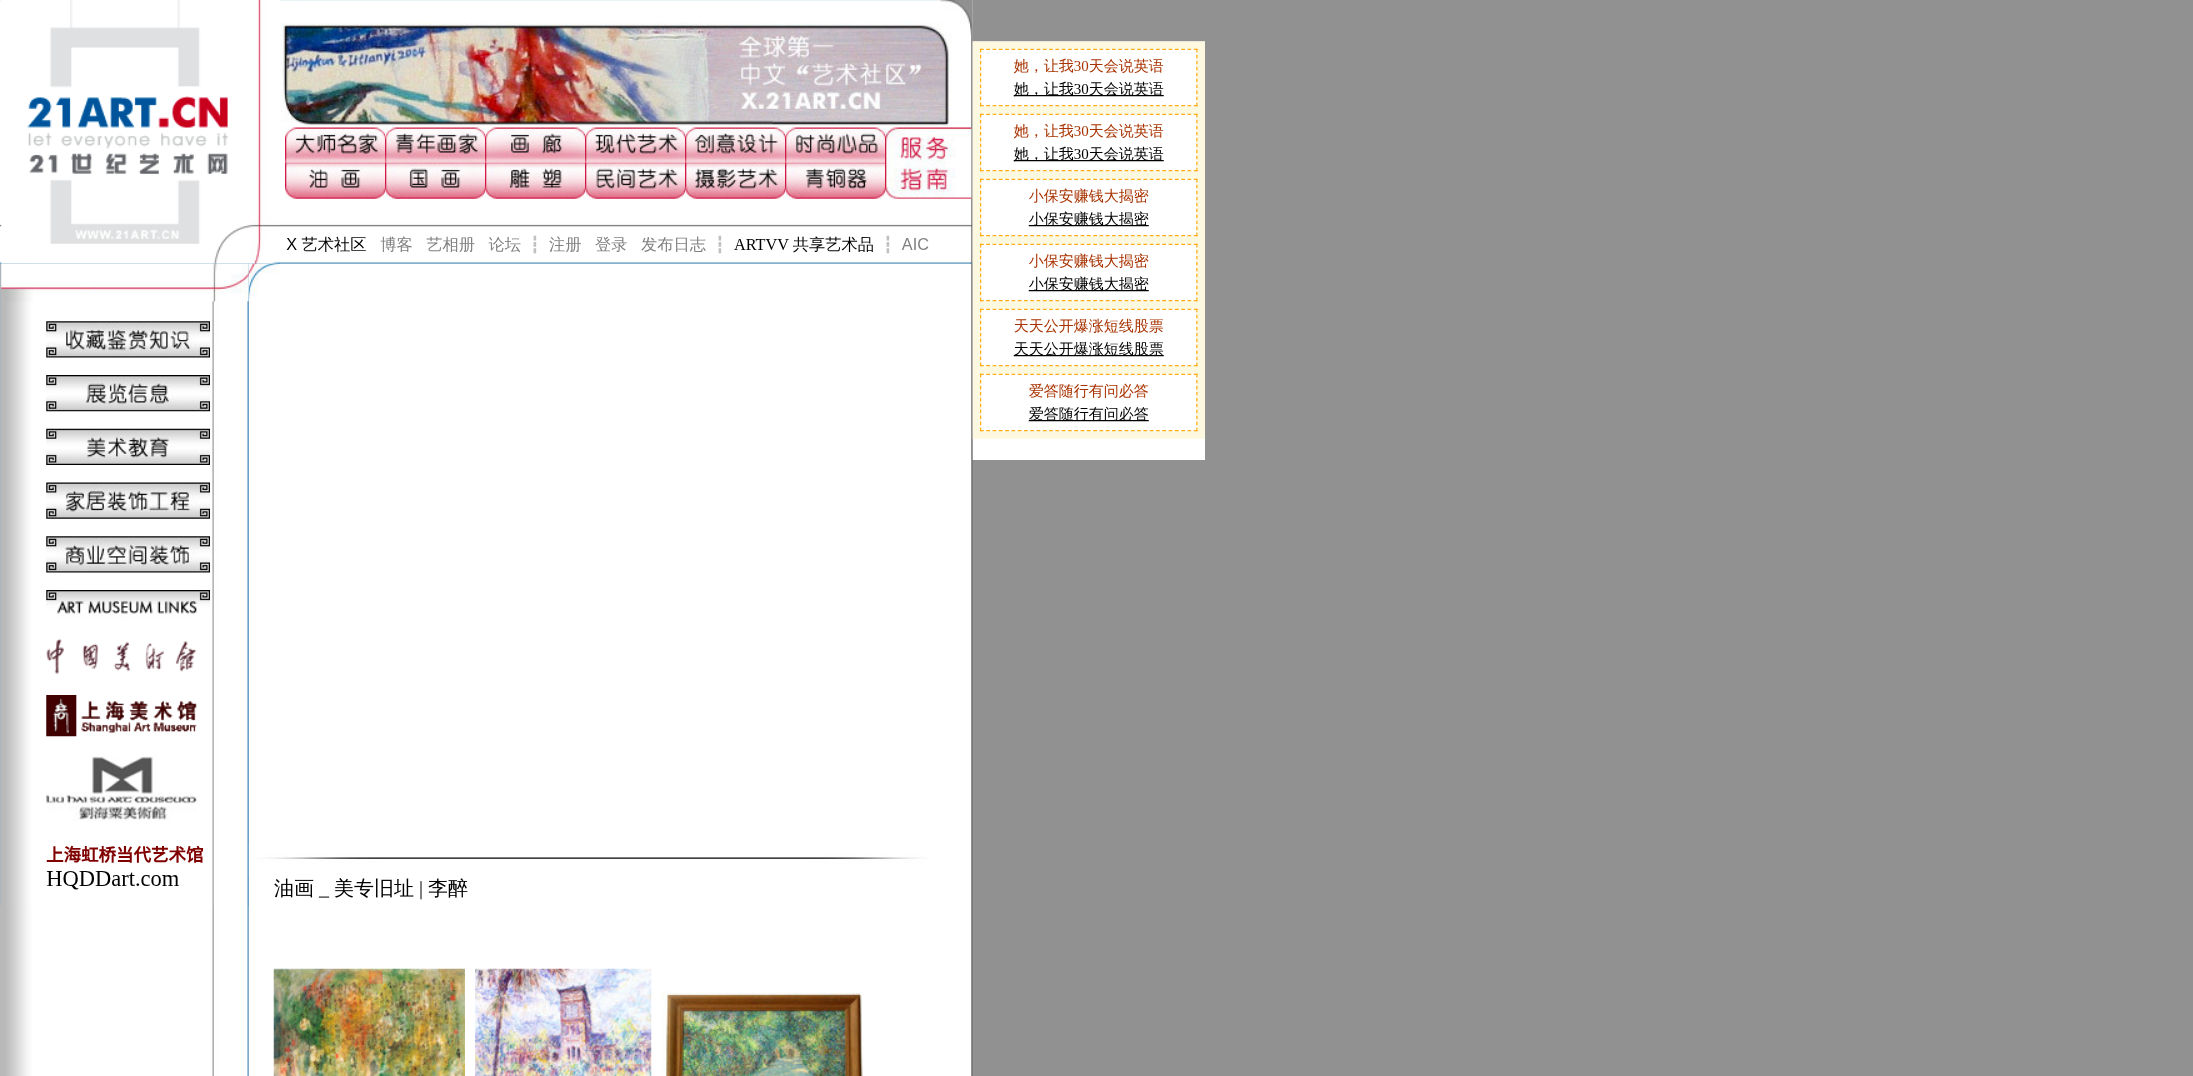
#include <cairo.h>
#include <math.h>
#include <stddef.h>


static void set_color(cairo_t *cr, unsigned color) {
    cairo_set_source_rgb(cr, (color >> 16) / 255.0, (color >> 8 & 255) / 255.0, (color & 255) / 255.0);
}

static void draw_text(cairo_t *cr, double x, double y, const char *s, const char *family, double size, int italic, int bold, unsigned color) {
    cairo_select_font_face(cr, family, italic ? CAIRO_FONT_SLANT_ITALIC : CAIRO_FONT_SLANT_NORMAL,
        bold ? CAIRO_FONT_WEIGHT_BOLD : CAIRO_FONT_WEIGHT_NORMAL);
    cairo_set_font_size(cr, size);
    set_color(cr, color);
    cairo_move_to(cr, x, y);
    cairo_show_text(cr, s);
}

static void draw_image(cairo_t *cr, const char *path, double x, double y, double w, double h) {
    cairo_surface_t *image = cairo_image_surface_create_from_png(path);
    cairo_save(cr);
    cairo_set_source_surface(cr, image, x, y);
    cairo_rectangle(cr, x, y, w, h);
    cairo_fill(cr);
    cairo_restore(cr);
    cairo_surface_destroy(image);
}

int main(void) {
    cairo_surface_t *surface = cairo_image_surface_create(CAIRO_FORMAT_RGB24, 2193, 1076);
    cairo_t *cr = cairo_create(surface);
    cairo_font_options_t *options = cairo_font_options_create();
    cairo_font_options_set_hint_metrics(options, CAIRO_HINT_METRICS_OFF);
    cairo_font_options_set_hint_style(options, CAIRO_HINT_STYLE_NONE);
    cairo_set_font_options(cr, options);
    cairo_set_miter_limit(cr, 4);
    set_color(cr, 0x919191);
    cairo_paint(cr);
    draw_image(cr, "assets/img3.png", 0, 263, 249, 813);
    draw_image(cr, "assets/img5.png", 248, 263, 725, 813);
    draw_image(cr, "assets/img6.png", 248, 263, 31, 37);
    draw_image(cr, "assets/img2.png", 0, 0, 973, 264);
    draw_image(cr, "assets/img1.png", 972, 41, 233, 419);
    draw_image(cr, "assets/img7.png", 248, 843, 680, 34);
    draw_image(cr, "assets/img4.png", 0, 263, 249, 644);
    draw_text(cr, 274, 895, "油画", "WenQuanYi Zen Hei Medium", 20, 0, 0, 0x000000);
    draw_text(cr, 319, 895, "_", "Liberation Serif", 20, 0, 0, 0x000000);
    draw_text(cr, 334, 895, "美专旧址", "WenQuanYi Zen Hei Medium", 20, 0, 0, 0x000000);
    draw_text(cr, 419, 895, "|", "Liberation Serif", 20, 0, 0, 0x000000);
    draw_text(cr, 428, 895, "李醉", "WenQuanYi Zen Hei Medium", 20, 0, 0, 0x000000);
    draw_image(cr, "assets/img8.png", 273, 968, 192, 108);
    draw_image(cr, "assets/img9.png", 475, 968, 177, 108);
    draw_image(cr, "assets/img10.png", 661, 991, 203, 85);
    cairo_surface_write_to_png(surface, "output.png");
    cairo_font_options_destroy(options);
    cairo_destroy(cr);
    cairo_surface_destroy(surface);
    return 0;
}
